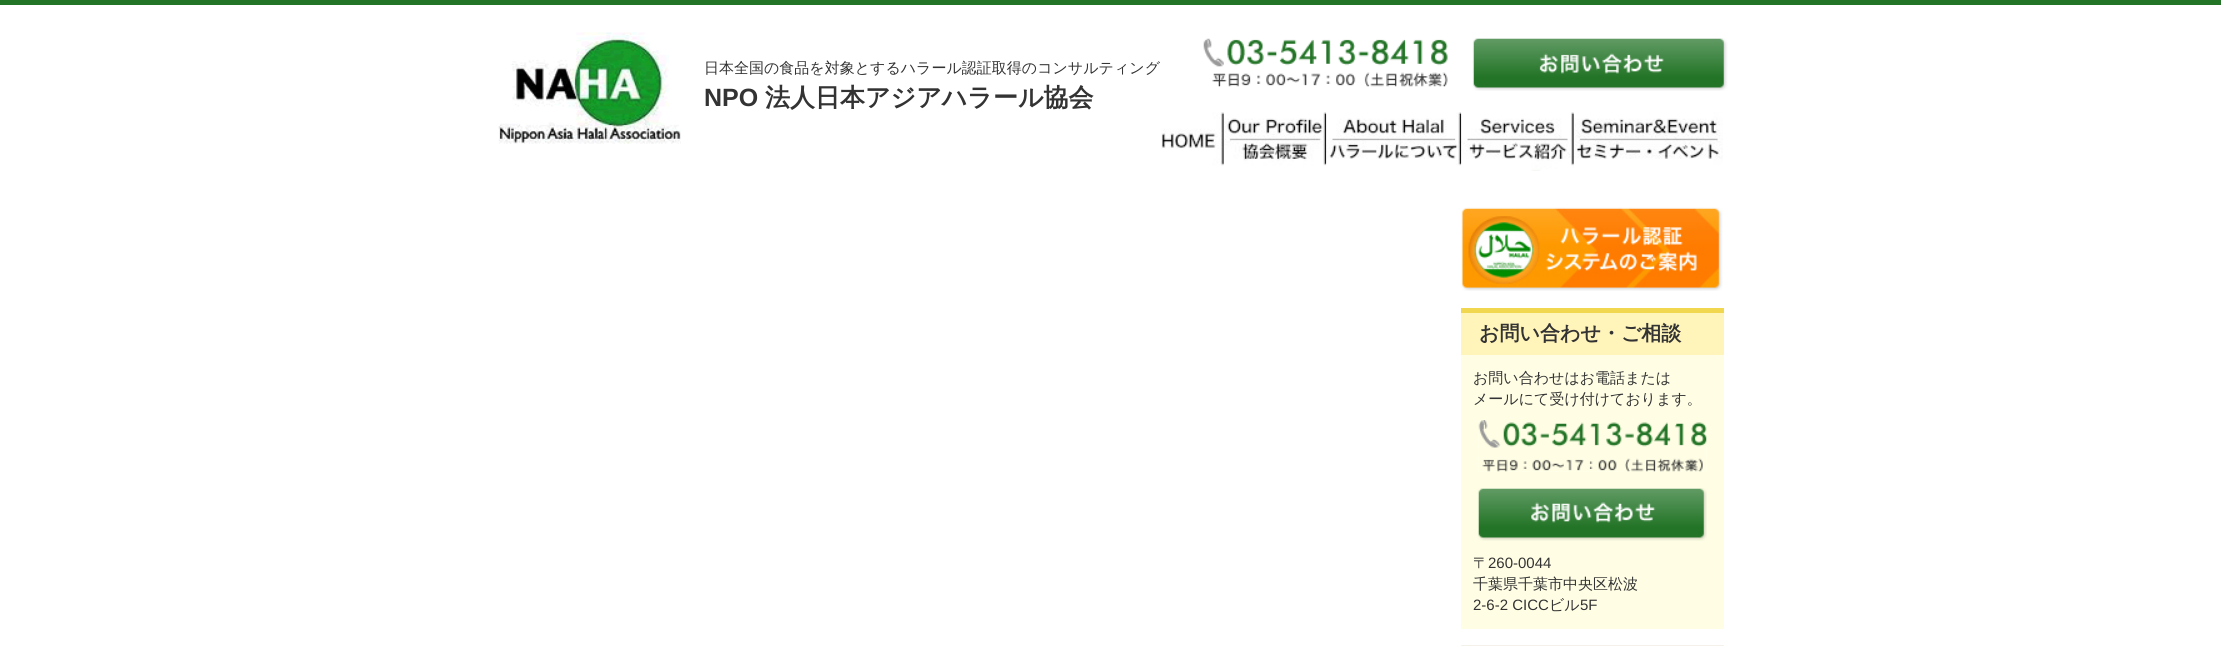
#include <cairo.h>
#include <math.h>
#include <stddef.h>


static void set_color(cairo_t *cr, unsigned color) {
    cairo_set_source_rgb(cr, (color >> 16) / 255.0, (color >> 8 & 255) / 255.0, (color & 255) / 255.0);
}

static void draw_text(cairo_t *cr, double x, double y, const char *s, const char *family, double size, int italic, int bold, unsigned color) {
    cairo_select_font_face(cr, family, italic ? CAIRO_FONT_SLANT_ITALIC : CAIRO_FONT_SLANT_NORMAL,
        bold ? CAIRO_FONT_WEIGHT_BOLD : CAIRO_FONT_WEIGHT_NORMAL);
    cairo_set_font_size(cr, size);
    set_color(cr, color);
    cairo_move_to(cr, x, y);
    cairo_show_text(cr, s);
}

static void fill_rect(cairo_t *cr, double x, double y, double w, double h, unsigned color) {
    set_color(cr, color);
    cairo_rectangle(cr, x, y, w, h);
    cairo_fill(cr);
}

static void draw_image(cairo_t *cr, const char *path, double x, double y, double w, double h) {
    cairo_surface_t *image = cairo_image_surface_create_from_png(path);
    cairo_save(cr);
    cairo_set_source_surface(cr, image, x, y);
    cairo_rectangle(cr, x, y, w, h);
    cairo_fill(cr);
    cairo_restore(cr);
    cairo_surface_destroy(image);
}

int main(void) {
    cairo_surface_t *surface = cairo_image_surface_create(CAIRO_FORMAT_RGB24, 2221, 646);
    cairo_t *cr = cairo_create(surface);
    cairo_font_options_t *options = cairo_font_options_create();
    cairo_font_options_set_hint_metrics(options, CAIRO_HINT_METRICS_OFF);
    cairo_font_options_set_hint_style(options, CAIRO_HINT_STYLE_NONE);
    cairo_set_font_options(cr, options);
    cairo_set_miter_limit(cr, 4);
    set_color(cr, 0xFFFFFF);
    cairo_paint(cr);
    fill_rect(cr, 0, 0, 2221, 5, 0x237427);
    draw_image(cr, "assets/img1.png", 498, 32, 183, 112);
    draw_text(cr, 704, 73, "日本全国の食品を対象とするハラール認証取得のコンサルティング", "WenQuanYi Zen Hei Medium", 15, 0, 0, 0x333333);
    draw_text(cr, 704, 106, "NPO", "Liberation Sans", 25, 0, 1, 0x333333);
    draw_text(cr, 765, 106, "法人日本アジアハラール協会", "WenQuanYi Zen Hei", 25, 0, 1, 0x333333);
    draw_image(cr, "assets/img2.png", 1203, 38, 245, 49);
    draw_image(cr, "assets/img3.png", 1472, 38, 256, 53);
    draw_image(cr, "assets/img4.png", 1161, 112, 63, 54);
    draw_image(cr, "assets/img5.png", 1223, 112, 104, 54);
    draw_image(cr, "assets/img6.png", 1326, 112, 136, 54);
    draw_image(cr, "assets/img7.png", 1461, 112, 113, 59);
    draw_image(cr, "assets/img8.png", 1573, 112, 150, 53);
    draw_image(cr, "assets/img9.png", 1461, 207, 262, 84);
    fill_rect(cr, 1461, 355, 263, 274, 0xFFFEE5);
    fill_rect(cr, 1461, 313, 263, 42, 0xFFF4B9);
    fill_rect(cr, 1461, 308, 263, 5, 0xF1D750);
    draw_text(cr, 1479, 340, "お問い合わせ・ご相談", "WenQuanYi Zen Hei", 20, 0, 1, 0x333333);
    draw_text(cr, 1473, 383, "お問い合わせはお電話または", "WenQuanYi Zen Hei Medium", 15, 0, 0, 0x333333);
    draw_text(cr, 1473, 404, "メールにて受け付けております。", "WenQuanYi Zen Hei Medium", 15, 0, 0, 0x333333);
    draw_image(cr, "assets/img10.png", 1478, 420, 229, 52);
    draw_image(cr, "assets/img11.png", 1477, 488, 230, 53);
    draw_text(cr, 1473, 568, "〒", "WenQuanYi Zen Hei Medium", 15, 0, 0, 0x333333);
    draw_text(cr, 1488, 568, "260-0044", "Liberation Sans", 15, 0, 0, 0x333333);
    draw_text(cr, 1473, 589, "千葉県千葉市中央区松波", "WenQuanYi Zen Hei Medium", 15, 0, 0, 0x333333);
    draw_text(cr, 1473, 610, "2-6-2 CICC", "Liberation Sans", 15, 0, 0, 0x333333);
    draw_text(cr, 1549, 610, "ビル", "WenQuanYi Zen Hei Medium", 15, 0, 0, 0x333333);
    draw_text(cr, 1580, 610, "5F", "Liberation Sans", 15, 0, 0, 0x333333);
    draw_image(cr, "assets/img12.png", 1461, 645, 263, 1);
    cairo_surface_write_to_png(surface, "output.png");
    cairo_font_options_destroy(options);
    cairo_destroy(cr);
    cairo_surface_destroy(surface);
    return 0;
}
